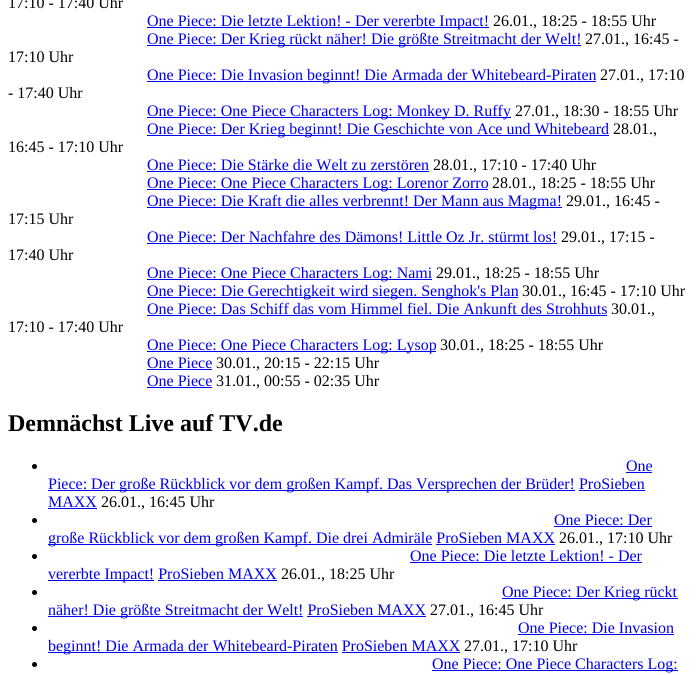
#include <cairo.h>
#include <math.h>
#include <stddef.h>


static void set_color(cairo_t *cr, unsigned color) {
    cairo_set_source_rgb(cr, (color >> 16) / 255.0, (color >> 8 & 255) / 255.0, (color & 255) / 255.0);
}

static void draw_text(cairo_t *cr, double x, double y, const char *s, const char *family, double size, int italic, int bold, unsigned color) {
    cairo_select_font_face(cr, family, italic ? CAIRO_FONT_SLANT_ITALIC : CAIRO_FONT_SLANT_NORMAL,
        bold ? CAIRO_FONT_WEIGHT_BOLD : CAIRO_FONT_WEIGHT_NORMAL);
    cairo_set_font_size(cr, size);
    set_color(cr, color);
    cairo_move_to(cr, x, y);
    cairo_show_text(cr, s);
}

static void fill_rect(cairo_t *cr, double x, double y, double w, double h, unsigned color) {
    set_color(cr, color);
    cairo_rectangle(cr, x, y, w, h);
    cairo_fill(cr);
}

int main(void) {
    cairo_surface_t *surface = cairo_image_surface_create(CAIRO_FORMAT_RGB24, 700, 675);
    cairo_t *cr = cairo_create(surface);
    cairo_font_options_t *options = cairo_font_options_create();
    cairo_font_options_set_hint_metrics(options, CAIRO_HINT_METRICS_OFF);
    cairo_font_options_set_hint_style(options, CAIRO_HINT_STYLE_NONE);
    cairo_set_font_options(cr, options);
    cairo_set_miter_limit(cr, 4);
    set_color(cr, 0xFFFFFF);
    cairo_paint(cr);
    draw_text(cr, 8, 8, "17:10 - 17:40 Uhr", "Liberation Serif", 16, 0, 0, 0x000000);
    fill_rect(cr, 147, 27, 342, 1, 0x0000EE);
    draw_text(cr, 147, 26, "One Piece: Die letzte Lektion! - Der vererbte Impact!", "Liberation Serif", 16, 0, 0, 0x0000EE);
    draw_text(cr, 493, 26, "26.01., 18:25 - 18:55 Uhr", "Liberation Serif", 16, 0, 0, 0x000000);
    fill_rect(cr, 147, 45, 434, 1, 0x0000EE);
    draw_text(cr, 147, 44, "One Piece: Der Krieg rückt näher! Die größte Streitmacht der Welt!", "Liberation Serif", 16, 0, 0, 0x0000EE);
    draw_text(cr, 585, 44, "27.01., 16:45 -", "Liberation Serif", 16, 0, 0, 0x000000);
    draw_text(cr, 8, 62, "17:10 Uhr", "Liberation Serif", 16, 0, 0, 0x000000);
    fill_rect(cr, 147, 81, 449, 1, 0x0000EE);
    draw_text(cr, 147, 80, "One Piece: Die Invasion beginnt! Die Armada der Whitebeard-Piraten", "Liberation Serif", 16, 0, 0, 0x0000EE);
    draw_text(cr, 600, 80, "27.01., 17:10", "Liberation Serif", 16, 0, 0, 0x000000);
    draw_text(cr, 8, 98, "- 17:40 Uhr", "Liberation Serif", 16, 0, 0, 0x000000);
    fill_rect(cr, 147, 117, 364, 1, 0x0000EE);
    draw_text(cr, 147, 116, "One Piece: One Piece Characters Log: Monkey D. Ruffy", "Liberation Serif", 16, 0, 0, 0x0000EE);
    draw_text(cr, 515, 116, "27.01., 18:30 - 18:55 Uhr", "Liberation Serif", 16, 0, 0, 0x000000);
    fill_rect(cr, 147, 135, 462, 1, 0x0000EE);
    draw_text(cr, 147, 134, "One Piece: Der Krieg beginnt! Die Geschichte von Ace und Whitebeard", "Liberation Serif", 16, 0, 0, 0x0000EE);
    draw_text(cr, 613, 134, "28.01.,", "Liberation Serif", 16, 0, 0, 0x000000);
    draw_text(cr, 8, 152, "16:45 - 17:10 Uhr", "Liberation Serif", 16, 0, 0, 0x000000);
    draw_text(cr, 147, 170, "One Piece: Die Stärke die Welt zu zerstören", "Liberation Serif", 16, 0, 0, 0x0000EE);
    fill_rect(cr, 147, 171, 282, 1, 0x0000EE);
    draw_text(cr, 433, 170, "28.01., 17:10 - 17:40 Uhr", "Liberation Serif", 16, 0, 0, 0x000000);
    fill_rect(cr, 147, 189, 341, 1, 0x0000EE);
    draw_text(cr, 147, 188, "One Piece: One Piece Characters Log: Lorenor Zorro", "Liberation Serif", 16, 0, 0, 0x0000EE);
    draw_text(cr, 492, 188, "28.01., 18:25 - 18:55 Uhr", "Liberation Serif", 16, 0, 0, 0x000000);
    fill_rect(cr, 147, 207, 415, 1, 0x0000EE);
    draw_text(cr, 147, 206, "One Piece: Die Kraft die alles verbrennt! Der Mann aus Magma!", "Liberation Serif", 16, 0, 0, 0x0000EE);
    draw_text(cr, 566, 206, "29.01., 16:45 -", "Liberation Serif", 16, 0, 0, 0x000000);
    draw_text(cr, 8, 224, "17:15 Uhr", "Liberation Serif", 16, 0, 0, 0x000000);
    draw_text(cr, 147, 242, "One Piece: Der Nachfahre des Dämons! Little Oz Jr. stürmt los!", "Liberation Serif", 16, 0, 0, 0x0000EE);
    fill_rect(cr, 147, 243, 410, 1, 0x0000EE);
    draw_text(cr, 561, 242, "29.01., 17:15 -", "Liberation Serif", 16, 0, 0, 0x000000);
    draw_text(cr, 8, 260, "17:40 Uhr", "Liberation Serif", 16, 0, 0, 0x000000);
    fill_rect(cr, 147, 279, 285, 1, 0x0000EE);
    draw_text(cr, 147, 278, "One Piece: One Piece Characters Log: Nami", "Liberation Serif", 16, 0, 0, 0x0000EE);
    draw_text(cr, 436, 278, "29.01., 18:25 - 18:55 Uhr", "Liberation Serif", 16, 0, 0, 0x000000);
    fill_rect(cr, 147, 297, 371, 1, 0x0000EE);
    draw_text(cr, 147, 296, "One Piece: Die Gerechtigkeit wird siegen. Senghok's Plan", "Liberation Serif", 16, 0, 0, 0x0000EE);
    draw_text(cr, 522, 296, "30.01., 16:45 - 17:10 Uhr", "Liberation Serif", 16, 0, 0, 0x000000);
    draw_text(cr, 147, 314, "One Piece: Das Schiff das vom Himmel fiel. Die Ankunft des Strohhuts", "Liberation Serif", 16, 0, 0, 0x0000EE);
    fill_rect(cr, 147, 315, 460, 1, 0x0000EE);
    draw_text(cr, 611, 314, "30.01.,", "Liberation Serif", 16, 0, 0, 0x000000);
    draw_text(cr, 8, 332, "17:10 - 17:40 Uhr", "Liberation Serif", 16, 0, 0, 0x000000);
    fill_rect(cr, 147, 351, 289, 1, 0x0000EE);
    draw_text(cr, 147, 350, "One Piece: One Piece Characters Log: Lysop", "Liberation Serif", 16, 0, 0, 0x0000EE);
    draw_text(cr, 440, 350, "30.01., 18:25 - 18:55 Uhr", "Liberation Serif", 16, 0, 0, 0x000000);
    draw_text(cr, 147, 368, "One Piece", "Liberation Serif", 16, 0, 0, 0x0000EE);
    fill_rect(cr, 147, 369, 65, 1, 0x0000EE);
    draw_text(cr, 216, 368, "30.01., 20:15 - 22:15 Uhr", "Liberation Serif", 16, 0, 0, 0x000000);
    draw_text(cr, 147, 386, "One Piece", "Liberation Serif", 16, 0, 0, 0x0000EE);
    fill_rect(cr, 147, 387, 65, 1, 0x0000EE);
    draw_text(cr, 216, 386, "31.01., 00:55 - 02:35 Uhr", "Liberation Serif", 16, 0, 0, 0x000000);
    draw_text(cr, 8, 431, "Demnächst Live auf TV.de", "Liberation Serif", 24, 0, 1, 0x000000);
    cairo_new_path(cr);
    cairo_arc(cr, 34.5, 466.5, 2.5, 0, 2 * M_PI);
    cairo_fill(cr);
    draw_text(cr, 626, 471, "One", "Liberation Serif", 16, 0, 0, 0x0000EE);
    fill_rect(cr, 626, 472, 26, 1, 0x0000EE);
    fill_rect(cr, 48, 490, 527, 1, 0x0000EE);
    draw_text(cr, 48, 489, "Piece: Der große Rückblick vor dem großen Kampf. Das Versprechen der Brüder! ProSieben", "Liberation Serif", 16, 0, 0, 0x0000EE);
    draw_text(cr, 48, 507, "MAXX", "Liberation Serif", 16, 0, 0, 0x0000EE);
    fill_rect(cr, 579, 490, 66, 1, 0x0000EE);
    fill_rect(cr, 48, 508, 49, 1, 0x0000EE);
    draw_text(cr, 101, 507, "26.01., 16:45 Uhr", "Liberation Serif", 16, 0, 0, 0x000000);
    cairo_new_path(cr);
    cairo_arc(cr, 34.5, 520.5, 2.5, 0, 2 * M_PI);
    cairo_fill(cr);
    draw_text(cr, 554, 525, "One Piece: Der", "Liberation Serif", 16, 0, 0, 0x0000EE);
    fill_rect(cr, 554, 526, 98, 1, 0x0000EE);
    fill_rect(cr, 48, 544, 384, 1, 0x0000EE);
    draw_text(cr, 48, 543, "große Rückblick vor dem großen Kampf. Die drei Admiräle ProSieben MAXX", "Liberation Serif", 16, 0, 0, 0x0000EE);
    draw_text(cr, 559, 543, "26.01., 17:10 Uhr", "Liberation Serif", 16, 0, 0, 0x000000);
    fill_rect(cr, 436, 544, 119, 1, 0x0000EE);
    set_color(cr, 0x000000);
    cairo_new_path(cr);
    cairo_arc(cr, 34.5, 556.5, 2.5, 0, 2 * M_PI);
    cairo_fill(cr);
    draw_text(cr, 410, 561, "One Piece: Die letzte Lektion! - Der", "Liberation Serif", 16, 0, 0, 0x0000EE);
    fill_rect(cr, 410, 562, 232, 1, 0x0000EE);
    fill_rect(cr, 48, 580, 106, 1, 0x0000EE);
    draw_text(cr, 48, 579, "vererbte Impact! ProSieben MAXX", "Liberation Serif", 16, 0, 0, 0x0000EE);
    draw_text(cr, 281, 579, "26.01., 18:25 Uhr", "Liberation Serif", 16, 0, 0, 0x000000);
    fill_rect(cr, 158, 580, 119, 1, 0x0000EE);
    set_color(cr, 0x000000);
    cairo_new_path(cr);
    cairo_arc(cr, 34.5, 592.5, 2.5, 0, 2 * M_PI);
    cairo_fill(cr);
    fill_rect(cr, 502, 598, 176, 1, 0x0000EE);
    draw_text(cr, 502, 597, "One Piece: Der Krieg rückt", "Liberation Serif", 16, 0, 0, 0x0000EE);
    fill_rect(cr, 48, 616, 255, 1, 0x0000EE);
    draw_text(cr, 48, 615, "näher! Die größte Streitmacht der Welt! ProSieben MAXX", "Liberation Serif", 16, 0, 0, 0x0000EE);
    draw_text(cr, 430, 615, "27.01., 16:45 Uhr", "Liberation Serif", 16, 0, 0, 0x000000);
    fill_rect(cr, 307, 616, 119, 1, 0x0000EE);
    set_color(cr, 0x000000);
    cairo_new_path(cr);
    cairo_arc(cr, 34.5, 628.5, 2.5, 0, 2 * M_PI);
    cairo_fill(cr);
    draw_text(cr, 518, 633, "One Piece: Die Invasion", "Liberation Serif", 16, 0, 0, 0x0000EE);
    fill_rect(cr, 518, 634, 156, 1, 0x0000EE);
    fill_rect(cr, 48, 652, 290, 1, 0x0000EE);
    draw_text(cr, 48, 651, "beginnt! Die Armada der Whitebeard-Piraten ProSieben MAXX", "Liberation Serif", 16, 0, 0, 0x0000EE);
    draw_text(cr, 464, 651, "27.01., 17:10 Uhr", "Liberation Serif", 16, 0, 0, 0x000000);
    fill_rect(cr, 342, 652, 118, 1, 0x0000EE);
    set_color(cr, 0x000000);
    cairo_new_path(cr);
    cairo_arc(cr, 34.5, 664.5, 2.5, 0, 2 * M_PI);
    cairo_fill(cr);
    fill_rect(cr, 432, 670, 246, 1, 0x0000EE);
    draw_text(cr, 432, 669, "One Piece: One Piece Characters Log:", "Liberation Serif", 16, 0, 0, 0x0000EE);
    cairo_surface_write_to_png(surface, "output.png");
    cairo_font_options_destroy(options);
    cairo_destroy(cr);
    cairo_surface_destroy(surface);
    return 0;
}
